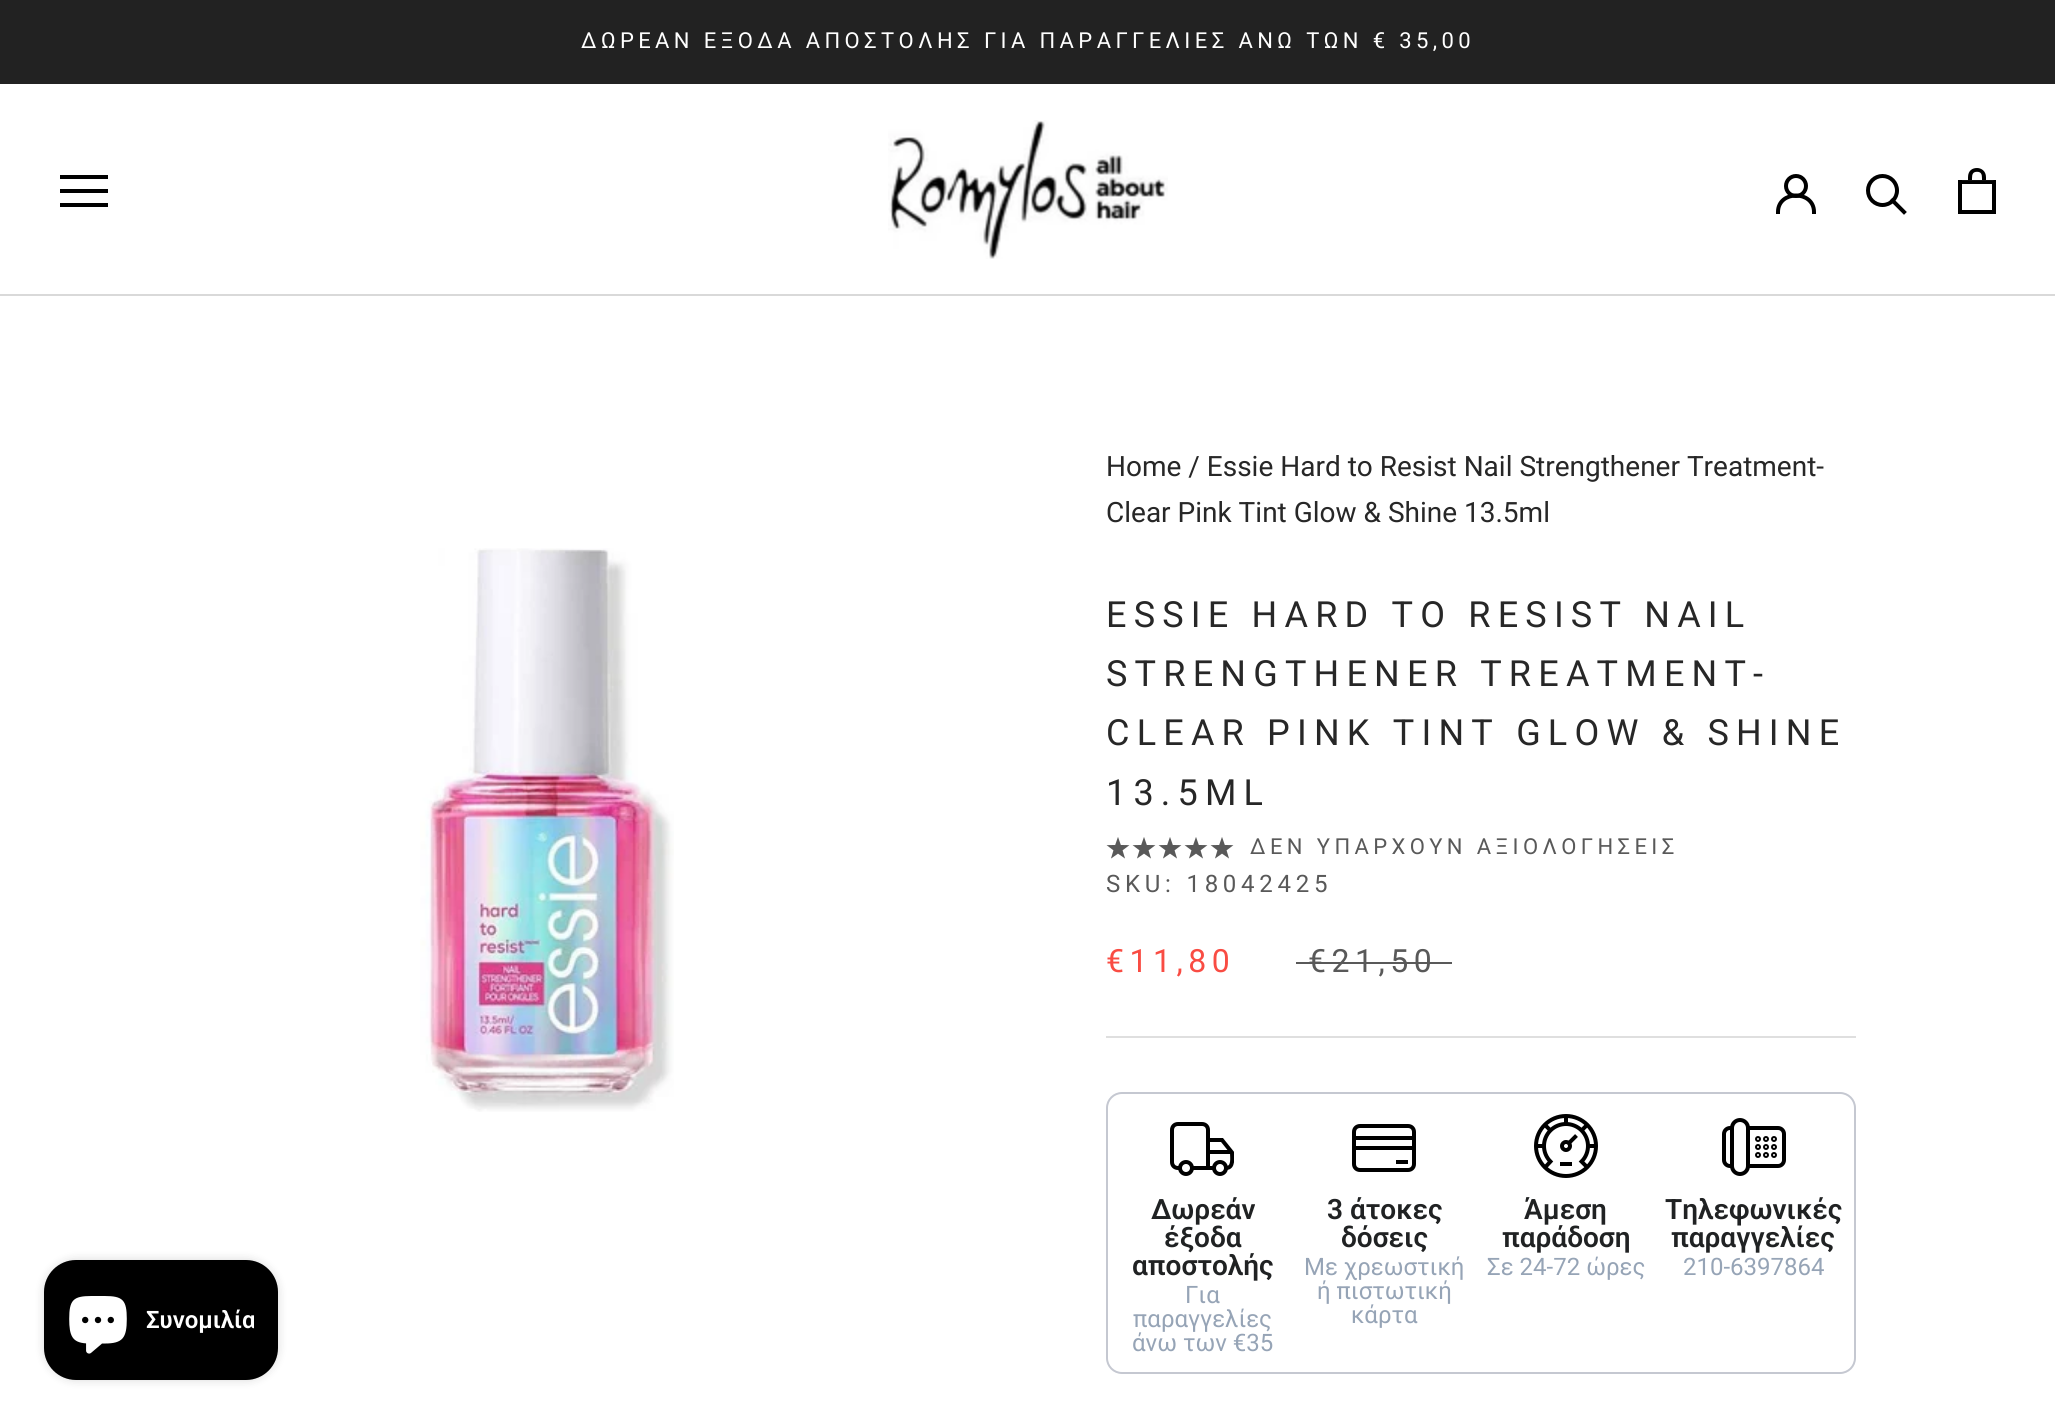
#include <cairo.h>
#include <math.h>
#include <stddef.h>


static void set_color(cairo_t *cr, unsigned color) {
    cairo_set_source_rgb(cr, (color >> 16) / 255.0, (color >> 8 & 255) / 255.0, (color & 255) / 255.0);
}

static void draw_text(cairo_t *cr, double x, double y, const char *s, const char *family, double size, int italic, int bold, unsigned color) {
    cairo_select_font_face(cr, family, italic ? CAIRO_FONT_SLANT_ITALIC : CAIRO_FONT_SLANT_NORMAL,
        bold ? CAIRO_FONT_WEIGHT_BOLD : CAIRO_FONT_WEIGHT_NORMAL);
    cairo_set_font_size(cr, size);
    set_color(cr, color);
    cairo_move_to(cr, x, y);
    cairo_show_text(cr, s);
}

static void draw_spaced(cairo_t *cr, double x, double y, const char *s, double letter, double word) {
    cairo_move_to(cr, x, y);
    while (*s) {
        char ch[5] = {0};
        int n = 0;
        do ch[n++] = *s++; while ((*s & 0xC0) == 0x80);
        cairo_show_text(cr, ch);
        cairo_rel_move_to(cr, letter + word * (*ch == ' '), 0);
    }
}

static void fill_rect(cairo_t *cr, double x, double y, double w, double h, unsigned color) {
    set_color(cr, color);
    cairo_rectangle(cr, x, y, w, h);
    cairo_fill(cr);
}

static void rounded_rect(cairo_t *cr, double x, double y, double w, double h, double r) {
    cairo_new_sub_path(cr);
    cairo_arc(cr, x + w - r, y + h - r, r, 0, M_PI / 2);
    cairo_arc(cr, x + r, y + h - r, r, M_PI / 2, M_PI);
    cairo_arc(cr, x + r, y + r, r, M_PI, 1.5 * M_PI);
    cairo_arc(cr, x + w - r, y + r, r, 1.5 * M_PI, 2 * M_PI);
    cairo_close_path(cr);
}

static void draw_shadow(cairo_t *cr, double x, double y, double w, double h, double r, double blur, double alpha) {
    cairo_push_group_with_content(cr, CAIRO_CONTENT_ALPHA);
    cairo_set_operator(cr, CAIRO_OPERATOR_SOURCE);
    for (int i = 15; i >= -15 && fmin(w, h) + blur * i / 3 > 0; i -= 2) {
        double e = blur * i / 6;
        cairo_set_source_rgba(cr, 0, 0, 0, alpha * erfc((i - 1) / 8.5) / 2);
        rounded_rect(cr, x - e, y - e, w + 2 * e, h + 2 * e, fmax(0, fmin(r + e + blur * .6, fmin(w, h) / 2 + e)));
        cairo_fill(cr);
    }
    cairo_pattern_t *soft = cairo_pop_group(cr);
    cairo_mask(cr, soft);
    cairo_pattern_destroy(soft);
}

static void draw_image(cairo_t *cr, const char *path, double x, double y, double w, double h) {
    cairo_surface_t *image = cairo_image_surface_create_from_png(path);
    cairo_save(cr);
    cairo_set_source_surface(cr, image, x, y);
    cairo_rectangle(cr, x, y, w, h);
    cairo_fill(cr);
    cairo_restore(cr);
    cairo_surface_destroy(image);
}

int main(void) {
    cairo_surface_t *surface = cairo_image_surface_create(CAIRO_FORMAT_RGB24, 2055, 1422);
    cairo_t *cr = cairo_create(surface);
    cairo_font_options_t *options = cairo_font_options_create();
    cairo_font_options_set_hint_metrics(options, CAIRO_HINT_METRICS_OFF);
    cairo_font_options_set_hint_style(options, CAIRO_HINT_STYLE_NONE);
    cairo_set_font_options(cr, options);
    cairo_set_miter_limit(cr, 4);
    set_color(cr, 0xFFFFFF);
    cairo_paint(cr);
    set_color(cr, 0x000000);
    draw_shadow(cr, 44, 1260, 234, 120, 32, 5, 0.15);
    set_color(cr, 0x000000);
    rounded_rect(cr, 44, 1260, 234, 120, 32);
    cairo_fill(cr);
    draw_image(cr, "assets/img1.png", 69, 1296, 58, 58);
    cairo_save(cr);
    cairo_rectangle(cr, 146, 1290, 108, 60);
    cairo_clip(cr);
    draw_text(cr, 146, 1328, "Συνομιλία", "Roboto SemiBold", 24, 0, 0, 0xFFFFFF);
    cairo_restore(cr);
    fill_rect(cr, 0, 0, 2055, 84, 0x222222);
    cairo_select_font_face(cr, "Roboto", CAIRO_FONT_SLANT_NORMAL, CAIRO_FONT_WEIGHT_NORMAL);
    cairo_set_font_size(cr, 22);
    set_color(cr, 0xFFFFFF);
    draw_spaced(cr, 581, 48, "ΔΩΡΕΑΝ ΕΞΟΔΑ ΑΠΟΣΤΟΛΗΣ ΓΙΑ ΠΑΡΑΓΓΕΛΙΕΣ ΑΝΩ ΤΩΝ € 35,00", 4.4, 0);
    fill_rect(cr, 0, 294, 2055, 2, 0xD9D9D9);
    set_color(cr, 0x000000);
    cairo_new_path(cr);
    cairo_move_to(cr, 60, 207);
    cairo_line_to(cr, 60, 203);
    cairo_line_to(cr, 108, 203);
    cairo_line_to(cr, 108, 207);
    cairo_close_path(cr);
    cairo_move_to(cr, 60, 189);
    cairo_line_to(cr, 108, 189);
    cairo_line_to(cr, 108, 193);
    cairo_line_to(cr, 60, 193);
    cairo_close_path(cr);
    cairo_move_to(cr, 60, 175);
    cairo_line_to(cr, 108, 175);
    cairo_line_to(cr, 108, 179);
    cairo_line_to(cr, 60, 179);
    cairo_close_path(cr);
    cairo_fill(cr);
    draw_image(cr, "assets/img2.png", 888, 120, 280, 139);
    cairo_new_path(cr);
    cairo_move_to(cr, 1778, 212);
    cairo_curve_to(cr, 1778, 190, 1814, 190, 1814, 212);
    cairo_set_line_width(cr, 4);
    cairo_set_line_cap(cr, CAIRO_LINE_CAP_SQUARE);
    cairo_stroke(cr);
    cairo_arc(cr, 1796, 186, 10, 0, 2 * M_PI);
    cairo_set_line_cap(cr, CAIRO_LINE_CAP_BUTT);
    cairo_stroke(cr);
    cairo_new_path(cr);
    cairo_move_to(cr, 1904, 212);
    cairo_line_to(cr, 1892.5, 200.5);
    cairo_set_line_cap(cr, CAIRO_LINE_CAP_SQUARE);
    cairo_stroke(cr);
    cairo_arc(cr, 1882.5, 190.5, 14.5, 0, 2 * M_PI);
    cairo_set_line_cap(cr, CAIRO_LINE_CAP_BUTT);
    cairo_stroke(cr);
    draw_image(cr, "assets/img3.png", 1958, 168, 38, 46);
    draw_image(cr, "assets/img4.png", 420, 548, 254, 564);
    draw_text(cr, 1106, 476, "Home / Essie Hard to Resist Nail Strengthener Treatment-", "Roboto", 28, 0, 0, 0x272727);
    draw_text(cr, 1106, 522, "Clear Pink Tint Glow & Shine 13.5ml", "Roboto", 28, 0, 0, 0x272727);
    fill_rect(cr, 1106, 1036, 750, 2, 0xDFDFDF);
    cairo_set_font_size(cr, 36);
    set_color(cr, 0x272727);
    draw_spaced(cr, 1106, 627, "ESSIE HARD TO RESIST NAIL", 7.2, 0);
    draw_spaced(cr, 1106, 686, "STRENGTHENER TREATMENT-", 7.2, 0);
    draw_spaced(cr, 1106, 745, "CLEAR PINK TINT GLOW & SHINE", 7.2, 0);
    draw_spaced(cr, 1106, 805, "13.5ML", 7.2, 0);
    draw_image(cr, "assets/img5.png", 1106, 837, 24, 22);
    draw_image(cr, "assets/img5.png", 1132, 837, 24, 22);
    draw_image(cr, "assets/img5.png", 1158, 837, 24, 22);
    draw_image(cr, "assets/img5.png", 1184, 837, 24, 22);
    draw_image(cr, "assets/img5.png", 1210, 837, 24, 22);
    cairo_set_font_size(cr, 22);
    set_color(cr, 0x595959);
    draw_spaced(cr, 1250, 854, "ΔΕΝ ΥΠΑΡΧΟΥΝ ΑΞΙΟΛΟΓΗΣΕΙΣ", 4.4, 0);
    cairo_set_font_size(cr, 24);
    draw_spaced(cr, 1106, 892, "SKU: 18042425", 4.75, 0);
    cairo_set_font_size(cr, 32);
    set_color(cr, 0xF94C43);
    draw_spaced(cr, 1106, 972, "€11,80", 5.5, 0);
    set_color(cr, 0x595959);
    draw_spaced(cr, 1308, 972, "€21,50", 5.5, 0);
    fill_rect(cr, 1296, 962, 156, 2, 0x595959);
    rounded_rect(cr, 1107, 1093, 748, 280, 15);
    set_color(cr, 0xC5C8D1);
    cairo_set_line_width(cr, 2);
    cairo_stroke(cr);
    cairo_arc(cr, 1220, 1168, 6, 0, 2 * M_PI);
    set_color(cr, 0x000000);
    cairo_set_line_width(cr, 4);
    cairo_stroke(cr);
    cairo_arc(cr, 1186, 1168, 6, 0, 2 * M_PI);
    cairo_stroke(cr);
    cairo_new_path(cr);
    cairo_move_to(cr, 1180, 1168);
    cairo_line_to(cr, 1178, 1168);
    cairo_curve_to(cr, 1174.5, 1168, 1172, 1165.5, 1172, 1162);
    cairo_line_to(cr, 1172, 1130);
    cairo_curve_to(cr, 1172, 1126.5, 1174.5, 1124, 1178, 1124);
    cairo_line_to(cr, 1202, 1124);
    cairo_curve_to(cr, 1205.5, 1124, 1208, 1126.5, 1208, 1130);
    cairo_line_to(cr, 1208, 1168);
    cairo_line_to(cr, 1192, 1168);
    cairo_stroke(cr);
    cairo_save(cr);
    cairo_rectangle(cr, 1170, 1114, 64, 64);
    cairo_clip(cr);
    cairo_new_path(cr);
    cairo_move_to(cr, 1214, 1168);
    cairo_line_to(cr, 1208, 1168);
    cairo_line_to(cr, 1208, 1140);
    cairo_line_to(cr, 1222, 1140);
    cairo_line_to(cr, 1232, 1152.5);
    cairo_curve_to(cr, 1232, 1157.5, 1234, 1168, 1226, 1168);
    cairo_stroke(cr);
    cairo_restore(cr);
    fill_rect(cr, 1208, 1150, 24, 4, 0x000000);
    draw_text(cr, 1151, 1219, "Δωρεάν", "Roboto SemiBold", 28, 0, 0, 0x202223);
    draw_text(cr, 1164, 1247, "έξοδα", "Roboto SemiBold", 28, 0, 0, 0x202223);
    draw_text(cr, 1132, 1275, "αποστολής", "Roboto SemiBold", 28, 0, 0, 0x202223);
    draw_text(cr, 1185, 1303, "Για", "Roboto", 24, 0, 0, 0x96A4B6);
    draw_text(cr, 1133, 1327, "παραγγελίες", "Roboto", 24, 0, 0, 0x96A4B6);
    draw_text(cr, 1132, 1351, "άνω των €35", "Roboto", 24, 0, 0, 0x96A4B6);
    cairo_new_path(cr);
    cairo_move_to(cr, 1414, 1164);
    cairo_curve_to(cr, 1414, 1167.5, 1411.5, 1170, 1408, 1170);
    cairo_line_to(cr, 1360, 1170);
    cairo_curve_to(cr, 1356.5, 1170, 1354, 1167.5, 1354, 1164);
    cairo_line_to(cr, 1354, 1132);
    cairo_curve_to(cr, 1354, 1128.5, 1356.5, 1126, 1360, 1126);
    cairo_line_to(cr, 1408, 1126);
    cairo_curve_to(cr, 1411.5, 1126, 1414, 1128.5, 1414, 1132);
    cairo_close_path(cr);
    set_color(cr, 0x000000);
    cairo_stroke(cr);
    fill_rect(cr, 1354, 1136, 60, 4, 0x000000);
    fill_rect(cr, 1354, 1146, 60, 4, 0x000000);
    fill_rect(cr, 1396, 1160, 12, 4, 0x000000);
    draw_text(cr, 1327, 1219, "3 άτοκες", "Roboto SemiBold", 28, 0, 0, 0x202223);
    draw_text(cr, 1341, 1247, "δόσεις", "Roboto SemiBold", 28, 0, 0, 0x202223);
    draw_text(cr, 1304, 1275, "Με χρεωστική", "Roboto", 24, 0, 0, 0x96A4B6);
    draw_text(cr, 1317, 1299, "ή πιστωτική", "Roboto", 24, 0, 0, 0x96A4B6);
    draw_text(cr, 1351, 1323, "κάρτα", "Roboto", 24, 0, 0, 0x96A4B6);
    draw_image(cr, "assets/img6.png", 1534, 1114, 64, 64);
    draw_text(cr, 1524, 1219, "Άμεση", "Roboto SemiBold", 28, 0, 0, 0x202223);
    draw_text(cr, 1502, 1247, "παράδοση", "Roboto SemiBold", 28, 0, 0, 0x202223);
    draw_text(cr, 1487, 1275, "Σε 24-72 ώρες", "Roboto", 24, 0, 0, 0x96A4B6);
    draw_image(cr, "assets/img7.png", 1722, 1118, 64, 58);
    draw_text(cr, 1665, 1219, "Τηλεφωνικές", "Roboto SemiBold", 28, 0, 0, 0x202223);
    draw_text(cr, 1671, 1247, "παραγγελίες", "Roboto SemiBold", 28, 0, 0, 0x202223);
    draw_text(cr, 1683, 1275, "210-6397864", "Roboto", 24, 0, 0, 0x96A4B6);
    cairo_surface_write_to_png(surface, "output.png");
    cairo_font_options_destroy(options);
    cairo_destroy(cr);
    cairo_surface_destroy(surface);
    return 0;
}
